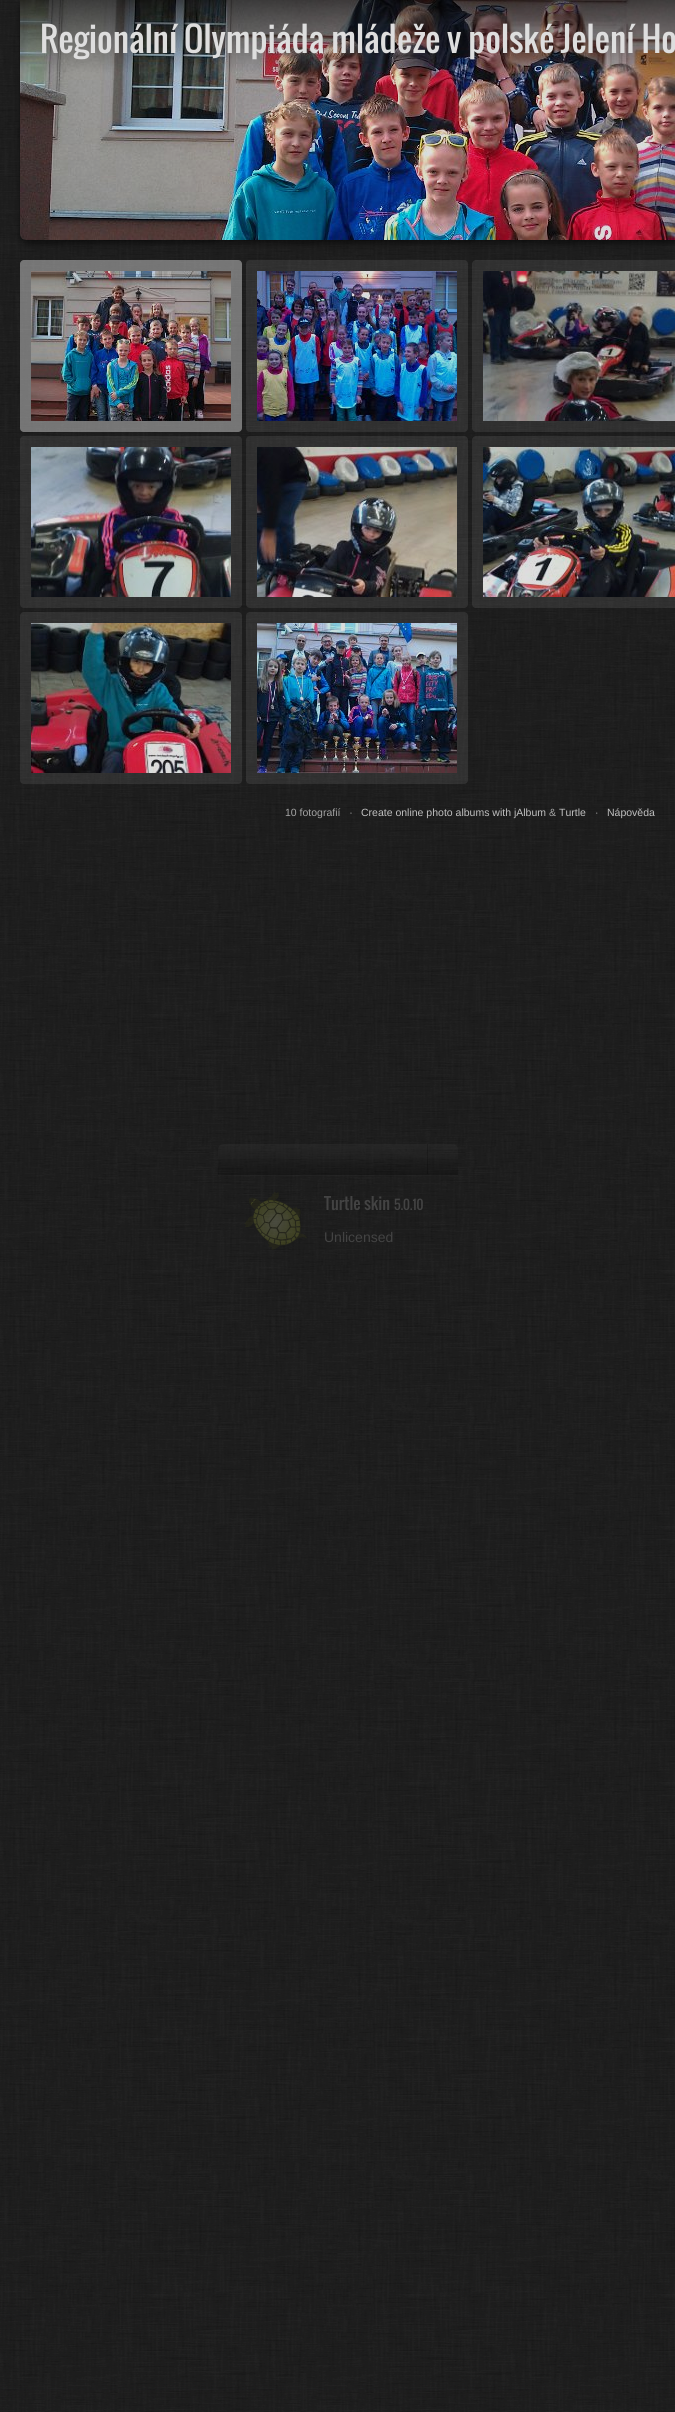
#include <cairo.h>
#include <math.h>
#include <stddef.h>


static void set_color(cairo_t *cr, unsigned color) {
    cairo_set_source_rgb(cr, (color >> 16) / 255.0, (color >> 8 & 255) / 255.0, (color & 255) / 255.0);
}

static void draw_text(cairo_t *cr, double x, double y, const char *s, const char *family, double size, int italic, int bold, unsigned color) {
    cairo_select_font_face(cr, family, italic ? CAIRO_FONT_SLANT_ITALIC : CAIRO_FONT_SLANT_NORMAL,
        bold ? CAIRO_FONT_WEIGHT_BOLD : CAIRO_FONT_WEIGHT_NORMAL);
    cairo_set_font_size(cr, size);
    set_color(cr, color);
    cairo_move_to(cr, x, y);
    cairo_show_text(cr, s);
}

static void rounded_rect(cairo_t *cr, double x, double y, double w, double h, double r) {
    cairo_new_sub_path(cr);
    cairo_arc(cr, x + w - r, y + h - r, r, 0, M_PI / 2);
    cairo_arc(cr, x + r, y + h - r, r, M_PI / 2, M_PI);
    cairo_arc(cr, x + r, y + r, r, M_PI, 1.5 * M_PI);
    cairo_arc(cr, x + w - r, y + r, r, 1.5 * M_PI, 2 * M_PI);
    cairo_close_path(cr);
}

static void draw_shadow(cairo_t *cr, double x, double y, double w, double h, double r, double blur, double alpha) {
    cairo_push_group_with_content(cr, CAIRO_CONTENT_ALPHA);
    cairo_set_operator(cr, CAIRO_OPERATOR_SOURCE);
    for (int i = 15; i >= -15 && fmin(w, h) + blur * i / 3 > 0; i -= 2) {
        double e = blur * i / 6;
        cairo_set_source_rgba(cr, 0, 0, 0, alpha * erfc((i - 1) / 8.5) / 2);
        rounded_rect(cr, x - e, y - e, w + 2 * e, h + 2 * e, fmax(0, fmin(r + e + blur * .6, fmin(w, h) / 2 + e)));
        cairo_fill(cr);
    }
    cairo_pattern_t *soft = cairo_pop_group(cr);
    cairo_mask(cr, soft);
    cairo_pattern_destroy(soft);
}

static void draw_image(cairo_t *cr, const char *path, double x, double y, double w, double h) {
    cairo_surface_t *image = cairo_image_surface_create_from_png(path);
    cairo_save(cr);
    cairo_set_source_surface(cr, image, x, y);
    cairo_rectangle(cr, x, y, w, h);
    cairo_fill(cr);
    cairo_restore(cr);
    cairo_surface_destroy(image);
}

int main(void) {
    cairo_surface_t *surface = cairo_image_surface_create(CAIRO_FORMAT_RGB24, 675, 2412);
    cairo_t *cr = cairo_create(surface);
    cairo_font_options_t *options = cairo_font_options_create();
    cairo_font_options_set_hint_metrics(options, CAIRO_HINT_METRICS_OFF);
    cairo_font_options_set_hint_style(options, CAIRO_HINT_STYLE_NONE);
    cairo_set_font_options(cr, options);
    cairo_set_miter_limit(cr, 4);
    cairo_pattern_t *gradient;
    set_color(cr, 0x1E1E1E);
    cairo_paint(cr);
    draw_image(cr, "assets/img1.png", 0, 0, 675, 2412);
    set_color(cr, 0x000000);
    draw_shadow(cr, 21, 3, 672, 240, 6, 4, 0.6);
    draw_image(cr, "assets/img2.png", 20, 0, 655, 240);
    draw_text(cr, 40, 53, "Regionální Olympiáda mládeže v polské Jelení Ho", "Oswald", 33.6, 0, 0, 0xDEDEDE);
    cairo_set_source_rgba(cr, 0.871, 0.871, 0.871, 0.1);
    rounded_rect(cr, 20, 260, 222, 172, 4);
    cairo_fill(cr);
    cairo_set_source_rgba(cr, 0.871, 0.871, 0.871, 0.4);
    rounded_rect(cr, 20, 260, 222, 172, 4);
    cairo_fill(cr);
    draw_image(cr, "assets/img3.png", 31, 271, 200, 150);
    cairo_set_source_rgba(cr, 0.871, 0.871, 0.871, 0.1);
    rounded_rect(cr, 246, 260, 222, 172, 4);
    cairo_fill(cr);
    draw_image(cr, "assets/img4.png", 257, 271, 200, 150);
    cairo_new_path(cr);
    cairo_move_to(cr, 476, 260);
    cairo_line_to(cr, 675, 260);
    cairo_line_to(cr, 675, 432);
    cairo_line_to(cr, 476, 432);
    cairo_curve_to(cr, 474, 432, 472, 430, 472, 428);
    cairo_line_to(cr, 472, 264);
    cairo_curve_to(cr, 472, 262, 474, 260, 476, 260);
    cairo_close_path(cr);
    cairo_fill(cr);
    draw_image(cr, "assets/img5.png", 483, 271, 192, 150);
    rounded_rect(cr, 20, 436, 222, 172, 4);
    cairo_fill(cr);
    draw_image(cr, "assets/img6.png", 31, 447, 200, 150);
    rounded_rect(cr, 246, 436, 222, 172, 4);
    cairo_fill(cr);
    draw_image(cr, "assets/img7.png", 257, 447, 200, 150);
    cairo_new_path(cr);
    cairo_move_to(cr, 476, 436);
    cairo_line_to(cr, 675, 436);
    cairo_line_to(cr, 675, 608);
    cairo_line_to(cr, 476, 608);
    cairo_curve_to(cr, 474, 608, 472, 606, 472, 604);
    cairo_line_to(cr, 472, 440);
    cairo_curve_to(cr, 472, 438, 474, 436, 476, 436);
    cairo_close_path(cr);
    cairo_fill(cr);
    draw_image(cr, "assets/img8.png", 483, 447, 192, 150);
    rounded_rect(cr, 20, 612, 222, 172, 4);
    cairo_fill(cr);
    draw_image(cr, "assets/img9.png", 31, 623, 200, 150);
    rounded_rect(cr, 246, 612, 222, 172, 4);
    cairo_fill(cr);
    draw_image(cr, "assets/img10.png", 257, 623, 200, 150);
    draw_text(cr, 285, 816, "10 fotografií   ·", "Liberation Sans", 10.5, 0, 0, 0xA3A3A3);
    draw_text(cr, 361, 816, "Create online photo albums with jAlbum", "Liberation Sans", 10.5, 0, 0, 0xC0C0C0);
    draw_text(cr, 549, 816, "&", "Liberation Sans", 10.5, 0, 0, 0xA3A3A3);
    draw_text(cr, 559, 816, "Turtle", "Liberation Sans", 10.5, 0, 0, 0xC0C0C0);
    draw_text(cr, 595, 816, "·", "Liberation Sans", 10.5, 0, 0, 0xA3A3A3);
    draw_text(cr, 607, 816, "Nápověda", "Liberation Sans", 10.5, 0, 0, 0xC0C0C0);
    gradient = cairo_pattern_create_linear(338, 1144, 338, 1174);
    cairo_pattern_add_color_stop_rgba(gradient, 0, 0.267, 0.267, 0.267, 0.21);
    cairo_pattern_add_color_stop_rgba(gradient, 0.5, 0.157, 0.157, 0.157, 0.21);
    cairo_pattern_add_color_stop_rgba(gradient, 0.5, 0.125, 0.125, 0.125, 0.21);
    cairo_pattern_add_color_stop_rgba(gradient, 1, 0, 0, 0, 0.21);
    cairo_set_source(cr, gradient);
    cairo_pattern_destroy(gradient);
    cairo_new_path(cr);
    cairo_move_to(cr, 224, 1144);
    cairo_line_to(cr, 452, 1144);
    cairo_curve_to(cr, 455.5, 1144, 458, 1146.5, 458, 1150);
    cairo_line_to(cr, 458, 1174);
    cairo_line_to(cr, 218, 1174);
    cairo_line_to(cr, 218, 1150);
    cairo_curve_to(cr, 218, 1146.5, 220.5, 1144, 224, 1144);
    cairo_close_path(cr);
    cairo_fill(cr);
    cairo_set_source_rgba(cr, 0, 0, 0, 0.21);
    cairo_rectangle(cr, 218, 1174, 240, 1);
    cairo_fill(cr);
    cairo_rectangle(cr, 427, 1144, 1, 30);
    cairo_fill(cr);
    cairo_set_source_rgba(cr, 0.2, 0.2, 0.2, 0.21);
    cairo_rectangle(cr, 218, 1175, 240, 1);
    cairo_fill(cr);
    draw_image(cr, "assets/img11.png", 244, 1192, 63, 58);
    draw_text(cr, 324, 1210, "Turtle skin", "Oswald", 16, 0, 0, 0x434343);
    draw_text(cr, 394, 1210, "5.0.10", "Oswald", 13, 0, 0, 0x434343);
    draw_text(cr, 324, 1242, "Unlicensed", "Liberation Sans", 14, 0, 0, 0x434343);
    cairo_surface_write_to_png(surface, "output.png");
    cairo_font_options_destroy(options);
    cairo_destroy(cr);
    cairo_surface_destroy(surface);
    return 0;
}
